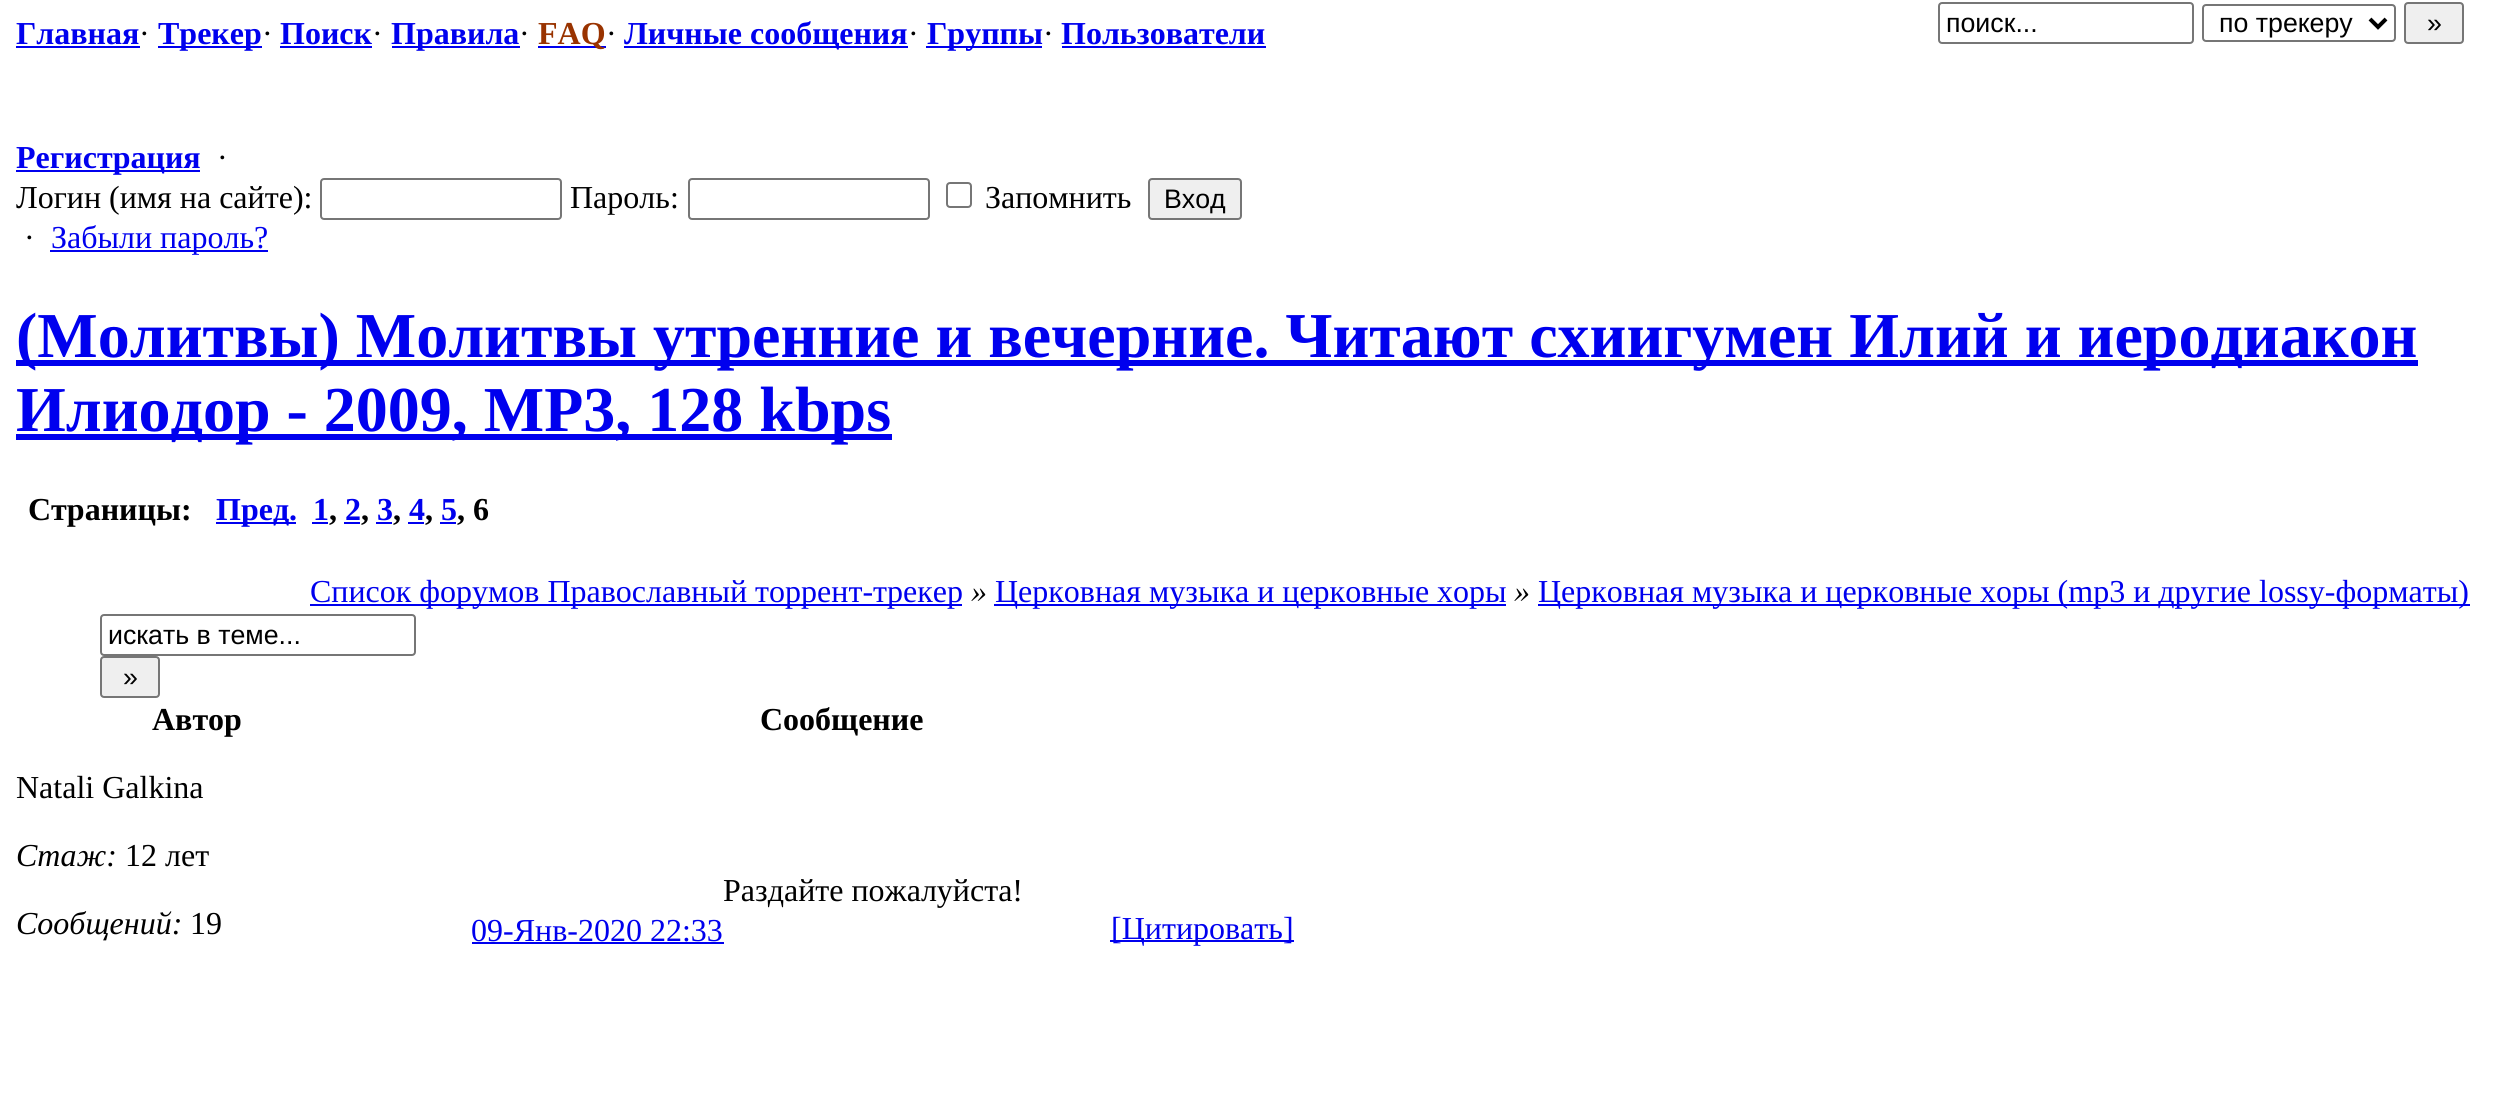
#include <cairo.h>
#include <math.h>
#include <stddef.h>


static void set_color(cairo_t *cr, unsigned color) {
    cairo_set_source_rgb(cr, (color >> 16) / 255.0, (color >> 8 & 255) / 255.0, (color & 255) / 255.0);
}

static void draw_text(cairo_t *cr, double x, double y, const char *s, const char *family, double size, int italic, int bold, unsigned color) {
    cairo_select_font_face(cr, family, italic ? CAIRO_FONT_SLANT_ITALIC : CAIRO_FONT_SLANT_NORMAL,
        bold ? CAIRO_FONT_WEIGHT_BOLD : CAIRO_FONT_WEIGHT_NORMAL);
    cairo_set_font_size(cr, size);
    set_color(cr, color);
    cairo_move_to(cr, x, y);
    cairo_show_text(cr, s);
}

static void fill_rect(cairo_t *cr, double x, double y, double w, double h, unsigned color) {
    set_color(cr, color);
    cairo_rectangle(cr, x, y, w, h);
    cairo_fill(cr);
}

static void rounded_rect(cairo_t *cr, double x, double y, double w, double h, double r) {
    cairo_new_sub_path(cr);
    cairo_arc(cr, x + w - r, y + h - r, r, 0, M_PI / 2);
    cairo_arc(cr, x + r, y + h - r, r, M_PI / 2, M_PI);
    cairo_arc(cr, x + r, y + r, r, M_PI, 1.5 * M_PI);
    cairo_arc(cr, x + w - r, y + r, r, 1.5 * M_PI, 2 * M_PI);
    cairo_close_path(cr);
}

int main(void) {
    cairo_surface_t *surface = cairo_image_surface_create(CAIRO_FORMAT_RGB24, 2495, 1097);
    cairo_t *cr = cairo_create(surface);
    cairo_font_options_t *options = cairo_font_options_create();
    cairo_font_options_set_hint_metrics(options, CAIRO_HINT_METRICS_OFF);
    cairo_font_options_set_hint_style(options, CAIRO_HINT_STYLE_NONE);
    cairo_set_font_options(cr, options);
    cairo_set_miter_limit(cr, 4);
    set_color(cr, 0xFFFFFF);
    cairo_paint(cr);
    draw_text(cr, 16, 44, "Главная", "Liberation Serif", 32, 0, 1, 0x0000EE);
    fill_rect(cr, 16, 46, 124, 2, 0x0000EE);
    draw_text(cr, 139, 44, "·", "Liberation Serif", 32, 0, 0, 0x000000);
    fill_rect(cr, 158, 46, 104, 2, 0x0000EE);
    draw_text(cr, 158, 44, "Трекер", "Liberation Serif", 32, 0, 1, 0x0000EE);
    draw_text(cr, 262, 44, "·", "Liberation Serif", 32, 0, 0, 0x000000);
    draw_text(cr, 280, 44, "Поиск", "Liberation Serif", 32, 0, 1, 0x0000EE);
    fill_rect(cr, 280, 46, 92, 2, 0x0000EE);
    draw_text(cr, 372, 44, "·", "Liberation Serif", 32, 0, 0, 0x000000);
    fill_rect(cr, 392, 46, 128, 2, 0x0000EE);
    draw_text(cr, 391, 44, "Правила", "Liberation Serif", 32, 0, 1, 0x0000EE);
    draw_text(cr, 519, 44, "·", "Liberation Serif", 32, 0, 0, 0x000000);
    fill_rect(cr, 538, 46, 68, 2, 0x0000EE);
    draw_text(cr, 538, 44, "FAQ", "Liberation Serif", 32, 0, 1, 0x993300);
    draw_text(cr, 606, 44, "·", "Liberation Serif", 32, 0, 0, 0x000000);
    fill_rect(cr, 624, 46, 284, 2, 0x0000EE);
    draw_text(cr, 624, 44, "Личные сообщения", "Liberation Serif", 32, 0, 1, 0x0000EE);
    draw_text(cr, 908, 44, "·", "Liberation Serif", 32, 0, 0, 0x000000);
    fill_rect(cr, 926, 46, 116, 2, 0x0000EE);
    draw_text(cr, 927, 44, "Группы", "Liberation Serif", 32, 0, 1, 0x0000EE);
    draw_text(cr, 1043, 44, "·", "Liberation Serif", 32, 0, 0, 0x000000);
    draw_text(cr, 1061, 44, "Пользователи", "Liberation Serif", 32, 0, 1, 0x0000EE);
    fill_rect(cr, 1062, 46, 204, 2, 0x0000EE);
    rounded_rect(cr, 1939, 3, 254, 40, 3);
    set_color(cr, 0x767676);
    cairo_stroke(cr);
    draw_text(cr, 1946, 32, "поиск...", "Liberation Sans", 26.75, 0, 0, 0x000000);
    rounded_rect(cr, 2203, 5, 192, 36, 3);
    set_color(cr, 0x767676);
    cairo_stroke(cr);
    cairo_new_path(cr);
    cairo_move_to(cr, 2370, 19);
    cairo_line_to(cr, 2378, 27);
    cairo_line_to(cr, 2386, 19);
    set_color(cr, 0x000000);
    cairo_set_line_width(cr, 4);
    cairo_stroke(cr);
    draw_text(cr, 2219, 32, "по трекеру", "Liberation Sans", 26.75, 0, 0, 0x000000);
    set_color(cr, 0xEFEFEF);
    rounded_rect(cr, 2405, 3, 58, 40, 3);
    cairo_fill_preserve(cr);
    set_color(cr, 0x767676);
    cairo_set_line_width(cr, 2);
    cairo_stroke(cr);
    draw_text(cr, 2427, 32, "»", "Liberation Sans", 26.75, 0, 0, 0x000000);
    fill_rect(cr, 16, 170, 184, 2, 0x0000EE);
    draw_text(cr, 16, 168, "Регистрация", "Liberation Serif", 32, 0, 1, 0x0000EE);
    draw_text(cr, 217, 168, "·", "Liberation Serif", 32, 0, 0, 0x000000);
    draw_text(cr, 16, 208, "Логин (имя на сайте):", "Liberation Serif", 32, 0, 0, 0x000000);
    rounded_rect(cr, 321, 179, 240, 40, 3);
    set_color(cr, 0x767676);
    cairo_stroke(cr);
    draw_text(cr, 570, 208, "Пароль:", "Liberation Serif", 32, 0, 0, 0x000000);
    rounded_rect(cr, 689, 179, 240, 40, 3);
    set_color(cr, 0x767676);
    cairo_stroke(cr);
    rounded_rect(cr, 947, 183, 24, 24, 3);
    cairo_stroke(cr);
    draw_text(cr, 985, 208, "Запомнить", "Liberation Serif", 32, 0, 0, 0x000000);
    set_color(cr, 0xEFEFEF);
    rounded_rect(cr, 1149, 179, 92, 40, 3);
    cairo_fill_preserve(cr);
    set_color(cr, 0x767676);
    cairo_stroke(cr);
    draw_text(cr, 1164, 208, "Вход", "Liberation Sans", 26.75, 0, 0, 0x000000);
    draw_text(cr, 24, 248, "·", "Liberation Serif", 32, 0, 0, 0x000000);
    fill_rect(cr, 50, 250, 218, 2, 0x0000EE);
    draw_text(cr, 51, 248, "Забыли пароль?", "Liberation Serif", 32, 0, 0, 0x0000EE);
    fill_rect(cr, 16, 360, 2402, 6, 0x0000EE);
    draw_text(cr, 16, 357, "(Молитвы) Молитвы утренние и вечерние. Читают схиигумен Илий и иеродиакон", "Liberation Serif", 64, 0, 1, 0x0000EE);
    fill_rect(cr, 16, 434, 876, 6, 0x0000EE);
    draw_text(cr, 16, 431, "Илиодор - 2009, MP3, 128 kbps", "Liberation Serif", 64, 0, 1, 0x0000EE);
    draw_text(cr, 28, 520, "Страницы:", "Liberation Serif", 32, 0, 1, 0x000000);
    fill_rect(cr, 216, 522, 80, 2, 0x0000EE);
    draw_text(cr, 216, 520, "Пред.", "Liberation Serif", 32, 0, 1, 0x0000EE);
    draw_text(cr, 313, 520, "1", "Liberation Serif", 32, 0, 1, 0x0000EE);
    draw_text(cr, 329, 520, ",", "Liberation Serif", 32, 0, 1, 0x000000);
    fill_rect(cr, 312, 522, 16, 2, 0x0000EE);
    draw_text(cr, 345, 520, "2", "Liberation Serif", 32, 0, 1, 0x0000EE);
    draw_text(cr, 361, 520, ",", "Liberation Serif", 32, 0, 1, 0x000000);
    fill_rect(cr, 344, 522, 16, 2, 0x0000EE);
    draw_text(cr, 377, 520, "3", "Liberation Serif", 32, 0, 1, 0x0000EE);
    draw_text(cr, 393, 520, ",", "Liberation Serif", 32, 0, 1, 0x000000);
    fill_rect(cr, 376, 522, 16, 2, 0x0000EE);
    draw_text(cr, 409, 520, "4", "Liberation Serif", 32, 0, 1, 0x0000EE);
    draw_text(cr, 425, 520, ",", "Liberation Serif", 32, 0, 1, 0x000000);
    fill_rect(cr, 408, 522, 16, 2, 0x0000EE);
    fill_rect(cr, 440, 522, 16, 2, 0x0000EE);
    draw_text(cr, 441, 520, "5", "Liberation Serif", 32, 0, 1, 0x0000EE);
    draw_text(cr, 457, 520, ", 6", "Liberation Serif", 32, 0, 1, 0x000000);
    fill_rect(cr, 310, 604, 652, 2, 0x0000EE);
    draw_text(cr, 310, 602, "Список форумов Православный торрент-трекер", "Liberation Serif", 32, 0, 0, 0x0000EE);
    draw_text(cr, 971, 602, "»", "Liberation Serif", 32, 1, 0, 0x000000);
    fill_rect(cr, 994, 604, 512, 2, 0x0000EE);
    draw_text(cr, 995, 602, "Церковная музыка и церковные хоры", "Liberation Serif", 32, 0, 0, 0x0000EE);
    draw_text(cr, 1514, 602, "»", "Liberation Serif", 32, 1, 0, 0x000000);
    fill_rect(cr, 1538, 604, 932, 2, 0x0000EE);
    draw_text(cr, 1538, 602, "Церковная музыка и церковные хоры (mp3 и другие lossy-форматы)", "Liberation Serif", 32, 0, 0, 0x0000EE);
    rounded_rect(cr, 101, 615, 314, 40, 3);
    set_color(cr, 0x767676);
    cairo_stroke(cr);
    draw_text(cr, 108, 644, "искать в теме...", "Liberation Sans", 26.75, 0, 0, 0x000000);
    set_color(cr, 0xEFEFEF);
    rounded_rect(cr, 101, 657, 58, 40, 3);
    cairo_fill_preserve(cr);
    set_color(cr, 0x767676);
    cairo_stroke(cr);
    draw_text(cr, 123, 686, "»", "Liberation Sans", 26.75, 0, 0, 0x000000);
    draw_text(cr, 152, 730, "Автор", "Liberation Serif", 32, 0, 1, 0x000000);
    draw_text(cr, 760, 730, "Сообщение", "Liberation Serif", 32, 0, 1, 0x000000);
    draw_text(cr, 16, 798, "Natali Galkina", "Liberation Serif", 32, 0, 0, 0x000000);
    draw_text(cr, 16, 866, "Стаж:", "Liberation Serif", 32, 1, 0, 0x000000);
    draw_text(cr, 125, 866, "12 лет", "Liberation Serif", 32, 0, 0, 0x000000);
    draw_text(cr, 16, 934, "Сообщений:", "Liberation Serif", 32, 1, 0, 0x000000);
    draw_text(cr, 190, 934, "19", "Liberation Serif", 32, 0, 0, 0x000000);
    draw_text(cr, 723, 901, "Раздайте пожалуйста!", "Liberation Serif", 32, 0, 0, 0x000000);
    draw_text(cr, 471, 941, "09-Янв-2020 22:33", "Liberation Serif", 32, 0, 0, 0x0000EE);
    fill_rect(cr, 472, 942, 252, 2, 0x0000EE);
    fill_rect(cr, 1110, 940, 184, 2, 0x0000EE);
    draw_text(cr, 1111, 939, "[Цитировать]", "Liberation Serif", 32, 0, 0, 0x0000EE);
    cairo_surface_write_to_png(surface, "output.png");
    cairo_font_options_destroy(options);
    cairo_destroy(cr);
    cairo_surface_destroy(surface);
    return 0;
}
